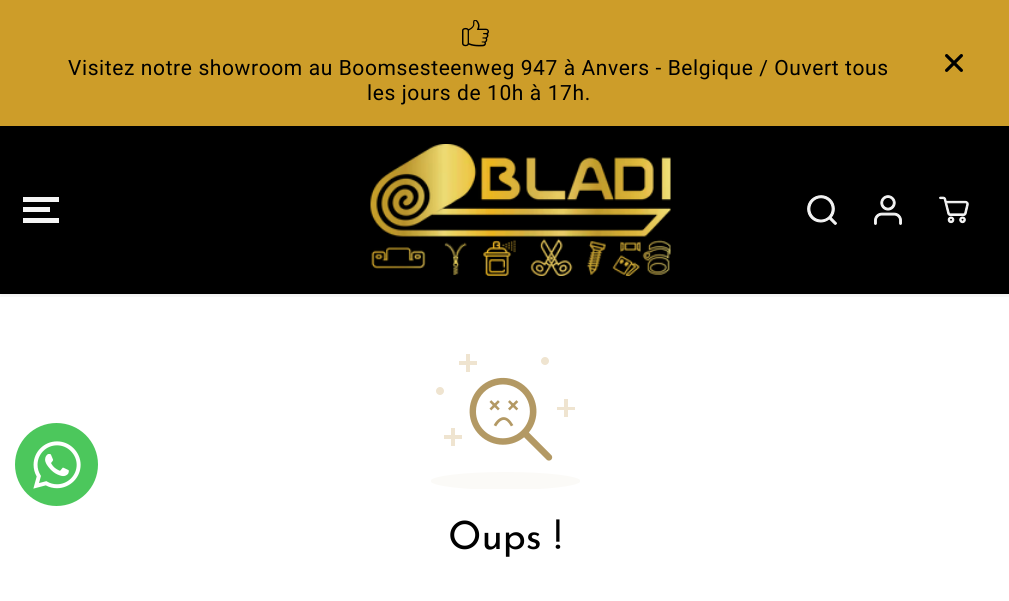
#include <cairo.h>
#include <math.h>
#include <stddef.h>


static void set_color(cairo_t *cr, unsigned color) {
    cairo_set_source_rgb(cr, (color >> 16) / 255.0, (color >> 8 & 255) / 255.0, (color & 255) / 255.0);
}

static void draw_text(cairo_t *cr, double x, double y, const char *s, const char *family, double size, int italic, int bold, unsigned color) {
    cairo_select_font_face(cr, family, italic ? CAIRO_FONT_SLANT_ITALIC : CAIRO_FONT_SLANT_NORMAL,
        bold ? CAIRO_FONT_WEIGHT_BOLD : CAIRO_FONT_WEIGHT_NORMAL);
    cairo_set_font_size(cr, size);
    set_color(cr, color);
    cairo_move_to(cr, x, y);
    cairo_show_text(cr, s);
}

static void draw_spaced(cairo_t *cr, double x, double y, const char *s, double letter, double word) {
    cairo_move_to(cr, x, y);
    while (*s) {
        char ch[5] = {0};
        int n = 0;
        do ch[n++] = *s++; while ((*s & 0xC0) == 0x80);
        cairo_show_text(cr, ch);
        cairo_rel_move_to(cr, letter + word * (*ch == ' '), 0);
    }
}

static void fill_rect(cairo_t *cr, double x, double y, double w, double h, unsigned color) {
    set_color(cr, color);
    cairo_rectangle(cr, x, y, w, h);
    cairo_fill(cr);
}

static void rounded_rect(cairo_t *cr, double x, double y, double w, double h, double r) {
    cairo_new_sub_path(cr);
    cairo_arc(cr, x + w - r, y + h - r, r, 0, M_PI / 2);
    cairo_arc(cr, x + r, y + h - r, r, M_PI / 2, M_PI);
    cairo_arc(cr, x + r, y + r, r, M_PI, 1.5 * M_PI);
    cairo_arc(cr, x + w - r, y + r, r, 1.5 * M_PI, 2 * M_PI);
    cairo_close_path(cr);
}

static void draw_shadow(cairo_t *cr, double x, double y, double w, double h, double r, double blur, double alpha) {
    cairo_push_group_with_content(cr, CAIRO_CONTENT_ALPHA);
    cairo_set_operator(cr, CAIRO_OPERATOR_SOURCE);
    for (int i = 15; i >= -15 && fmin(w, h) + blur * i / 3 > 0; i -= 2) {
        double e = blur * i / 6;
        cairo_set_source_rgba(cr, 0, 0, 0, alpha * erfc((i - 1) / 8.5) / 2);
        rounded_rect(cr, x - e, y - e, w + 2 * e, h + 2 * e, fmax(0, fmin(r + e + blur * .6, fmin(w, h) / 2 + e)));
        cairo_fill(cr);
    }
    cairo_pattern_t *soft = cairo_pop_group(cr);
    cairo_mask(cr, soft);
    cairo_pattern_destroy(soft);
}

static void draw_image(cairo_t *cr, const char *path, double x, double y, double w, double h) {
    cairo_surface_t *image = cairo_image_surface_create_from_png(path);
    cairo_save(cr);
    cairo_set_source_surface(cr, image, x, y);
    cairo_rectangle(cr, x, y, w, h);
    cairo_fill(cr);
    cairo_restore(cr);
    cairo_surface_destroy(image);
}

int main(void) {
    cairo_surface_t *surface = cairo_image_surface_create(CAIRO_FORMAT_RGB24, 1009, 601);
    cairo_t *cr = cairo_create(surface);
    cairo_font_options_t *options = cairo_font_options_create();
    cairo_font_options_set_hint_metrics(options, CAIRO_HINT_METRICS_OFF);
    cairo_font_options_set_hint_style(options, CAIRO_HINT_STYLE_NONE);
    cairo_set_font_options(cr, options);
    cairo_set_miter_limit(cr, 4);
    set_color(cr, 0xFFFFFF);
    cairo_paint(cr);
    set_color(cr, 0x4CC75C);
    cairo_arc(cr, 56.5, 464.5, 41.5, 0, 2 * M_PI);
    cairo_fill(cr);
    draw_image(cr, "assets/img1.png", 33, 441, 48, 48);
    fill_rect(cr, 0, 0, 1009, 126, 0xCD9D29);
    draw_image(cr, "assets/img2.png", 462, 20, 27, 27);
    cairo_select_font_face(cr, "Roboto", CAIRO_FONT_SLANT_NORMAL, CAIRO_FONT_WEIGHT_NORMAL);
    cairo_set_font_size(cr, 21);
    set_color(cr, 0x000000);
    draw_spaced(cr, 68, 75, "Visitez notre showroom au Boomsesteenweg 947 à Anvers - Belgique / Ouvert tous", 0.6, 0);
    draw_spaced(cr, 367, 100, "les jours de 10h à 17h.", 0.6, 0);
    draw_image(cr, "assets/img3.png", 945, 54, 18, 18);
    fill_rect(cr, 0, 126, 1009, 168, 0x000000);
    cairo_save(cr);
    cairo_rectangle(cr, 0, 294, 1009, 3);
    cairo_clip(cr);
    set_color(cr, 0x000000);
    draw_shadow(cr, 0, 129, 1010, 168, 0, 1.5, 0.05);
    cairo_restore(cr);
    fill_rect(cr, 23, 207, 27, 5, 0xF5F5F5);
    fill_rect(cr, 23, 197, 36, 5, 0xF5F5F5);
    fill_rect(cr, 23, 218, 36, 5, 0xF5F5F5);
    draw_image(cr, "assets/img4.png", 370, 144, 301, 132);
    draw_image(cr, "assets/img5.png", 807, 195, 30, 30);
    draw_image(cr, "assets/img6.png", 874, 195, 28, 30);
    draw_image(cr, "assets/img7.png", 939, 196, 30, 28);
    draw_image(cr, "assets/img8.png", 431, 354, 149, 135);
    draw_text(cr, 448, 549, "Oups !", "Josefin Sans", 39, 0, 0, 0x000000);
    cairo_surface_write_to_png(surface, "output.png");
    cairo_font_options_destroy(options);
    cairo_destroy(cr);
    cairo_surface_destroy(surface);
    return 0;
}
